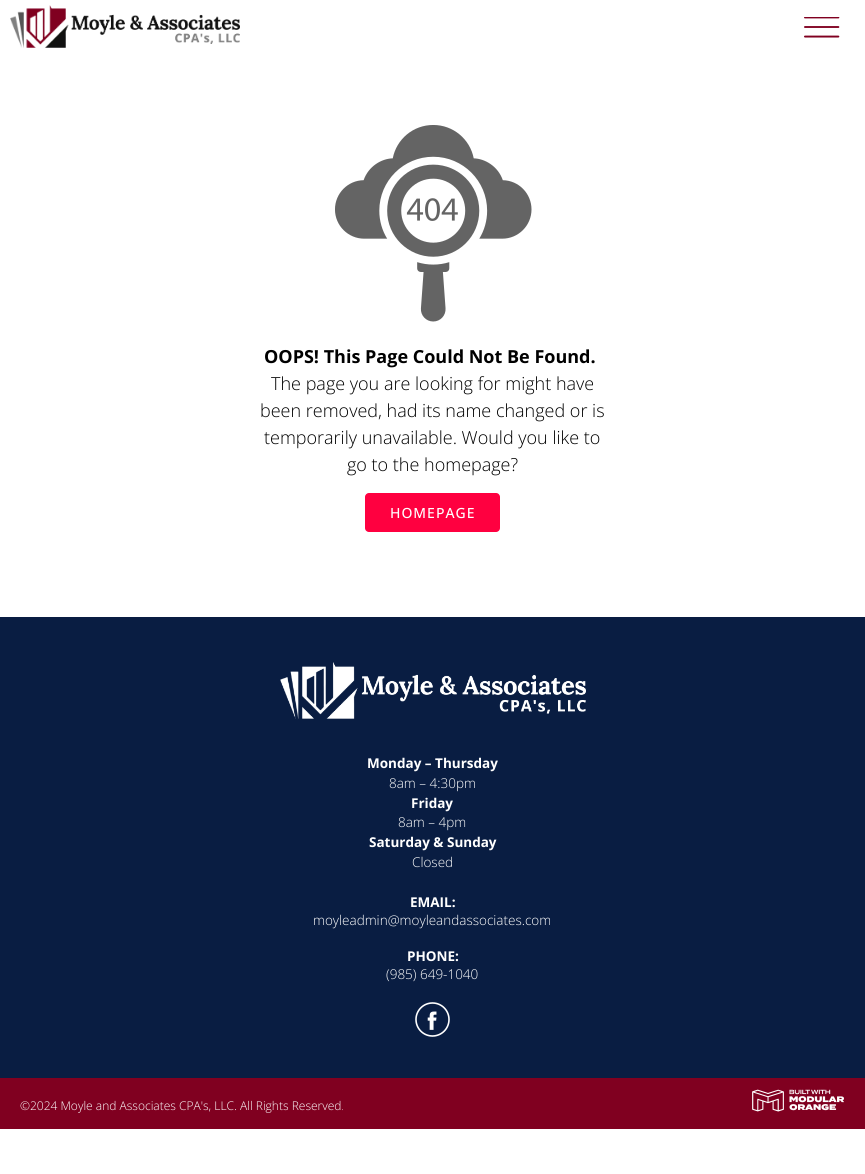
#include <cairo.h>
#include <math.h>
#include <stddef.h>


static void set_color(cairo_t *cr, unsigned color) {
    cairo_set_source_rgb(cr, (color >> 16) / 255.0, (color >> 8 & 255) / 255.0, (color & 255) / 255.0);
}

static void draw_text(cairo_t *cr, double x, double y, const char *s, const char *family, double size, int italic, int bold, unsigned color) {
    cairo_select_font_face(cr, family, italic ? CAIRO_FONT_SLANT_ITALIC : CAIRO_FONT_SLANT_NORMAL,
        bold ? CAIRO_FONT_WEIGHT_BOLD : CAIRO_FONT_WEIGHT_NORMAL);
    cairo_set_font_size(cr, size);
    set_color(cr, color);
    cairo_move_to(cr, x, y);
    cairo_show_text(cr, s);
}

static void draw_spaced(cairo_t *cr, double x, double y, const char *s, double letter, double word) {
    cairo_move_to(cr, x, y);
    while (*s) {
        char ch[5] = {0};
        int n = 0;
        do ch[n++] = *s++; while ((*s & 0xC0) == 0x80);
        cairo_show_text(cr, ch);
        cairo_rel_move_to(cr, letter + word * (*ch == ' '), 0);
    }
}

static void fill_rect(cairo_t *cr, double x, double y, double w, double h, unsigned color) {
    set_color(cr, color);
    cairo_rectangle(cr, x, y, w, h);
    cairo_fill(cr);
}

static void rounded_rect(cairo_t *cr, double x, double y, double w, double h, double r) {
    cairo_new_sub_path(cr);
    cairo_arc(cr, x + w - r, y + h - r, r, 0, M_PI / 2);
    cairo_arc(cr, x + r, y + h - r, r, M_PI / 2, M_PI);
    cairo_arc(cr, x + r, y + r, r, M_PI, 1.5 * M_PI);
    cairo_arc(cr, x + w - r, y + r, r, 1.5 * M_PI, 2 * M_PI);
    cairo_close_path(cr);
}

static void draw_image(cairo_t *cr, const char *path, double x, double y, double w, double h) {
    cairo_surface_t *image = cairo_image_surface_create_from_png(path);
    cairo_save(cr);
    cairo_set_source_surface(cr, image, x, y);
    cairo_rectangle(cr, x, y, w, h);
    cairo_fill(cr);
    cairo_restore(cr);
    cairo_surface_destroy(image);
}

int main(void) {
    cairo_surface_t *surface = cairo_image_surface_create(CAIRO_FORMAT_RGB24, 865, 1174);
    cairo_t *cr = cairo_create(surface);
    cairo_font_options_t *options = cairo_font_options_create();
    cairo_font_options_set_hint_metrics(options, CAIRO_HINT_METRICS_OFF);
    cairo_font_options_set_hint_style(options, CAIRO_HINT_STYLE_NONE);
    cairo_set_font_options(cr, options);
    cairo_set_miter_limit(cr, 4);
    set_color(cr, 0xFFFFFF);
    cairo_paint(cr);
    draw_image(cr, "assets/img1.png", 10, 5, 230, 43);
    draw_image(cr, "assets/img2.png", 804, 17, 36, 21);
    draw_image(cr, "assets/img3.png", 335, 125, 197, 197);
    draw_text(cr, 264, 363, "OOPS! This Page Could Not Be Found.", "Open Sans", 18, 0, 1, 0x000000);
    draw_text(cr, 271, 390, "The page you are looking for might have", "Open Sans Light", 18, 0, 0, 0x000000);
    draw_text(cr, 260, 417, "been removed, had its name changed or is", "Open Sans Light", 18, 0, 0, 0x000000);
    draw_text(cr, 264, 444, "temporarily unavailable. Would you like to", "Open Sans Light", 18, 0, 0, 0x000000);
    draw_text(cr, 347, 471, "go to the homepage?", "Open Sans Light", 18, 0, 0, 0x000000);
    set_color(cr, 0xFF0040);
    rounded_rect(cr, 365, 493, 135, 39, 4);
    cairo_fill(cr);
    cairo_select_font_face(cr, "Open Sans Medium", CAIRO_FONT_SLANT_NORMAL, CAIRO_FONT_WEIGHT_NORMAL);
    cairo_set_font_size(cr, 14);
    set_color(cr, 0xFFFFFF);
    draw_spaced(cr, 390, 518, "HOMEPAGE", 1, 0);
    fill_rect(cr, 0, 617, 865, 461, 0x091D42);
    draw_image(cr, "assets/img4.png", 280, 662, 306, 57);
    draw_text(cr, 367, 768, "Monday – Thursday", "Open Sans", 13.5, 0, 1, 0xFFFFFF);
    draw_text(cr, 389, 788, "8am – 4:30pm", "Open Sans Light", 13.5, 0, 0, 0xFFFFFF);
    draw_text(cr, 411, 808, "Friday", "Open Sans", 13.5, 0, 1, 0xFFFFFF);
    draw_text(cr, 398, 827, "8am – 4pm", "Open Sans Light", 13.5, 0, 0, 0xFFFFFF);
    draw_text(cr, 369, 847, "Saturday & Sunday", "Open Sans", 13.5, 0, 1, 0xFFFFFF);
    draw_text(cr, 412, 867, "Closed", "Open Sans Light", 13.5, 0, 0, 0xFFFFFF);
    draw_text(cr, 410, 907, "EMAIL:", "Open Sans", 13.5, 0, 1, 0xFFFFFF);
    draw_text(cr, 313, 925, "moyleadmin@moyleandassociates.com", "Open Sans Light", 13.5, 0, 0, 0xFFFFFF);
    draw_text(cr, 407, 961, "PHONE:", "Open Sans", 13.5, 0, 1, 0xFFFFFF);
    draw_text(cr, 386, 979, "(985) 649-1040", "Open Sans Light", 13.5, 0, 0, 0xFFFFFF);
    draw_image(cr, "assets/img5.png", 415, 1002, 35, 35);
    fill_rect(cr, 0, 1078, 865, 51, 0x800020);
    draw_text(cr, 20, 1110, "©2024 Moyle and Associates CPA's, LLC. All Rights Reserved.", "Open Sans Light", 12, 0, 0, 0xFFFFFF);
    draw_image(cr, "assets/img6.png", 752, 1089, 92, 23);
    cairo_surface_write_to_png(surface, "output.png");
    cairo_font_options_destroy(options);
    cairo_destroy(cr);
    cairo_surface_destroy(surface);
    return 0;
}
